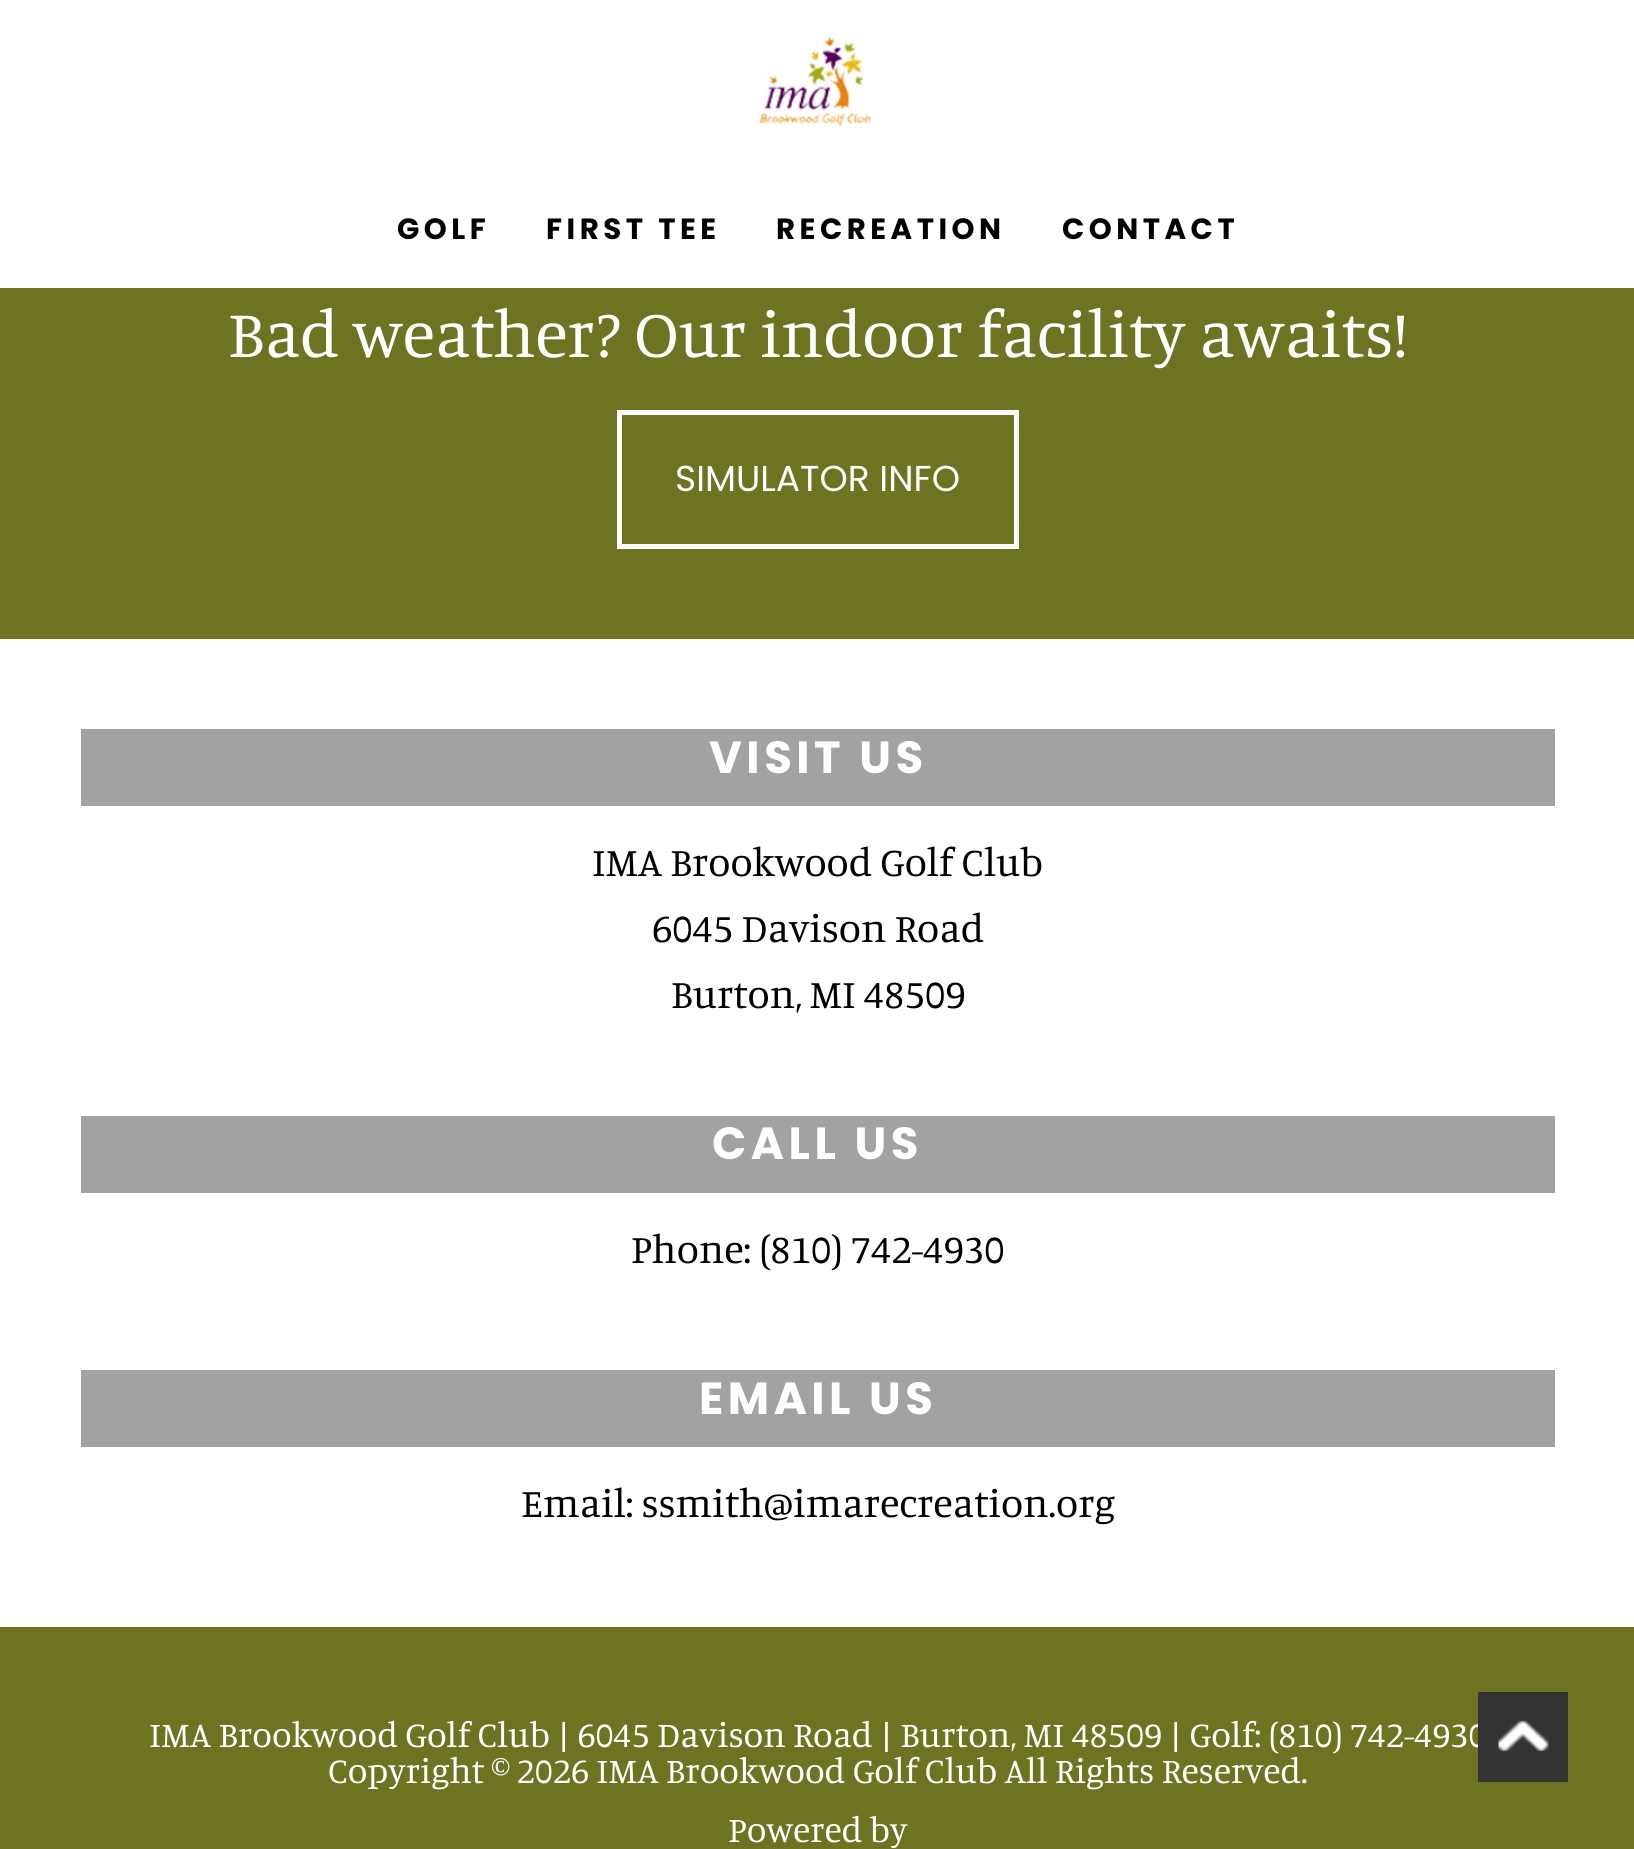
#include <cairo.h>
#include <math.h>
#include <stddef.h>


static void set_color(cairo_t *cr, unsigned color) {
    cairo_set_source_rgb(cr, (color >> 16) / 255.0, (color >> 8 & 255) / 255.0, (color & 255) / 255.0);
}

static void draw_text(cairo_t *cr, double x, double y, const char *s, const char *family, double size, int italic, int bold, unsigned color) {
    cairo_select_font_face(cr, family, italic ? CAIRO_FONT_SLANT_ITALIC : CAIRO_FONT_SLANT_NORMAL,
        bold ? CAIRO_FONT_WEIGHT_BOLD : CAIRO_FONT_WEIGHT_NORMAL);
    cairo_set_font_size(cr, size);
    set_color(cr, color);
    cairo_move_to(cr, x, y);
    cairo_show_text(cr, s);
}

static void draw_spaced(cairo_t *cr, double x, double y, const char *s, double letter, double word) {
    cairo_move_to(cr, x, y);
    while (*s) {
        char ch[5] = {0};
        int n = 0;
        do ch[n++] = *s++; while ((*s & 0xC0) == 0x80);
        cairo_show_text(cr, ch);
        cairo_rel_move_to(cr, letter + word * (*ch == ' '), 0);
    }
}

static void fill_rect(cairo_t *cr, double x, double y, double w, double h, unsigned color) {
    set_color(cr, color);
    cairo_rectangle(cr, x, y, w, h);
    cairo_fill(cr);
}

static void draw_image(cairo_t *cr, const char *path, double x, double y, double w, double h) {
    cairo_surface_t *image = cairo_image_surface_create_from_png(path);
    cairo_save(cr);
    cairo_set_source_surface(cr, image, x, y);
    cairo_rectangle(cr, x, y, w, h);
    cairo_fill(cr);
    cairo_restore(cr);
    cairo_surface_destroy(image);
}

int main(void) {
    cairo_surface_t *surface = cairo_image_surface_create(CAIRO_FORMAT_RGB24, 1634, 1849);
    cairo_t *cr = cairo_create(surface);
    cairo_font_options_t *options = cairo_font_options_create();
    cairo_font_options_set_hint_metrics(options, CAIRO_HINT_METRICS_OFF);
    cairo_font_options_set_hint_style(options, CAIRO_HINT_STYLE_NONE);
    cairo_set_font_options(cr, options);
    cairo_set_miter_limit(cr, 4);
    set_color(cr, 0xFFFFFF);
    cairo_paint(cr);
    draw_image(cr, "assets/img1.png", 759, 36, 112, 91);
    cairo_select_font_face(cr, "Poppins", CAIRO_FONT_SLANT_NORMAL, CAIRO_FONT_WEIGHT_BOLD);
    cairo_set_font_size(cr, 29.25);
    set_color(cr, 0x000000);
    draw_spaced(cr, 397, 239, "GOLF", 4.5, 0);
    draw_spaced(cr, 546, 239, "FIRST TEE", 4.5, 0);
    draw_spaced(cr, 776, 239, "RECREATION", 4.5, 0);
    draw_spaced(cr, 1062, 239, "CONTACT", 4.5, 0);
    fill_rect(cr, 0, 288, 1634, 351, 0x6D7320);
    draw_text(cr, 228, 357, "Bad weather? Our indoor facility awaits!", "Manuale", 67.5, 0, 0, 0xFFFFFF);
    cairo_rectangle(cr, 619.5, 412.5, 397, 134);
    cairo_set_line_width(cr, 5);
    cairo_stroke(cr);
    draw_text(cr, 675, 491, "SIMULATOR INFO", "Poppins", 36, 0, 0, 0xFFFFFF);
    fill_rect(cr, 81, 729, 1474, 77, 0xA3A2A2);
    cairo_select_font_face(cr, "Poppins", CAIRO_FONT_SLANT_NORMAL, CAIRO_FONT_WEIGHT_BOLD);
    cairo_set_font_size(cr, 45);
    set_color(cr, 0xFFFFFF);
    draw_spaced(cr, 709, 773, "VISIT US", 4.5, 0);
    draw_text(cr, 592, 876, "IMA Brookwood Golf Club", "Manuale", 40.5, 0, 0, 0x000000);
    draw_text(cr, 652, 942, "6045 Davison Road", "Manuale", 40.5, 0, 0, 0x000000);
    draw_text(cr, 671, 1008, "Burton, MI 48509", "Manuale", 40.5, 0, 0, 0x000000);
    fill_rect(cr, 81, 1116, 1474, 77, 0xA3A2A2);
    cairo_select_font_face(cr, "Poppins", CAIRO_FONT_SLANT_NORMAL, CAIRO_FONT_WEIGHT_BOLD);
    cairo_set_font_size(cr, 45);
    set_color(cr, 0xFFFFFF);
    draw_spaced(cr, 712, 1159, "CALL US", 4.5, 0);
    draw_text(cr, 631, 1263, "Phone: (810) 742-4930", "Manuale", 40.5, 0, 0, 0x000000);
    fill_rect(cr, 81, 1370, 1474, 77, 0xA3A2A2);
    cairo_select_font_face(cr, "Poppins", CAIRO_FONT_SLANT_NORMAL, CAIRO_FONT_WEIGHT_BOLD);
    cairo_set_font_size(cr, 45);
    set_color(cr, 0xFFFFFF);
    draw_spaced(cr, 699, 1414, "EMAIL US", 4.5, 0);
    draw_text(cr, 521, 1517, "Email: ssmith@imarecreation.org", "Manuale", 40.5, 0, 0, 0x000000);
    fill_rect(cr, 0, 1627, 1634, 222, 0x6D7320);
    draw_text(cr, 149, 1747, "IMA Brookwood Golf Club | 6045 Davison Road | Burton, MI 48509 | Golf: (810) 742-4930", "Manuale", 36, 0, 0, 0xFFFFFF);
    draw_text(cr, 328, 1783, "Copyright © 2026 IMA Brookwood Golf Club All Rights Reserved.", "Manuale", 36, 0, 0, 0xFFFFFF);
    draw_text(cr, 728, 1842, "Powered by", "Manuale", 36, 0, 0, 0xFFFFFF);
    fill_rect(cr, 1478, 1692, 90, 90, 0x333333);
    draw_image(cr, "assets/img2.png", 1498, 1720, 51, 32);
    cairo_surface_write_to_png(surface, "output.png");
    cairo_font_options_destroy(options);
    cairo_destroy(cr);
    cairo_surface_destroy(surface);
    return 0;
}
